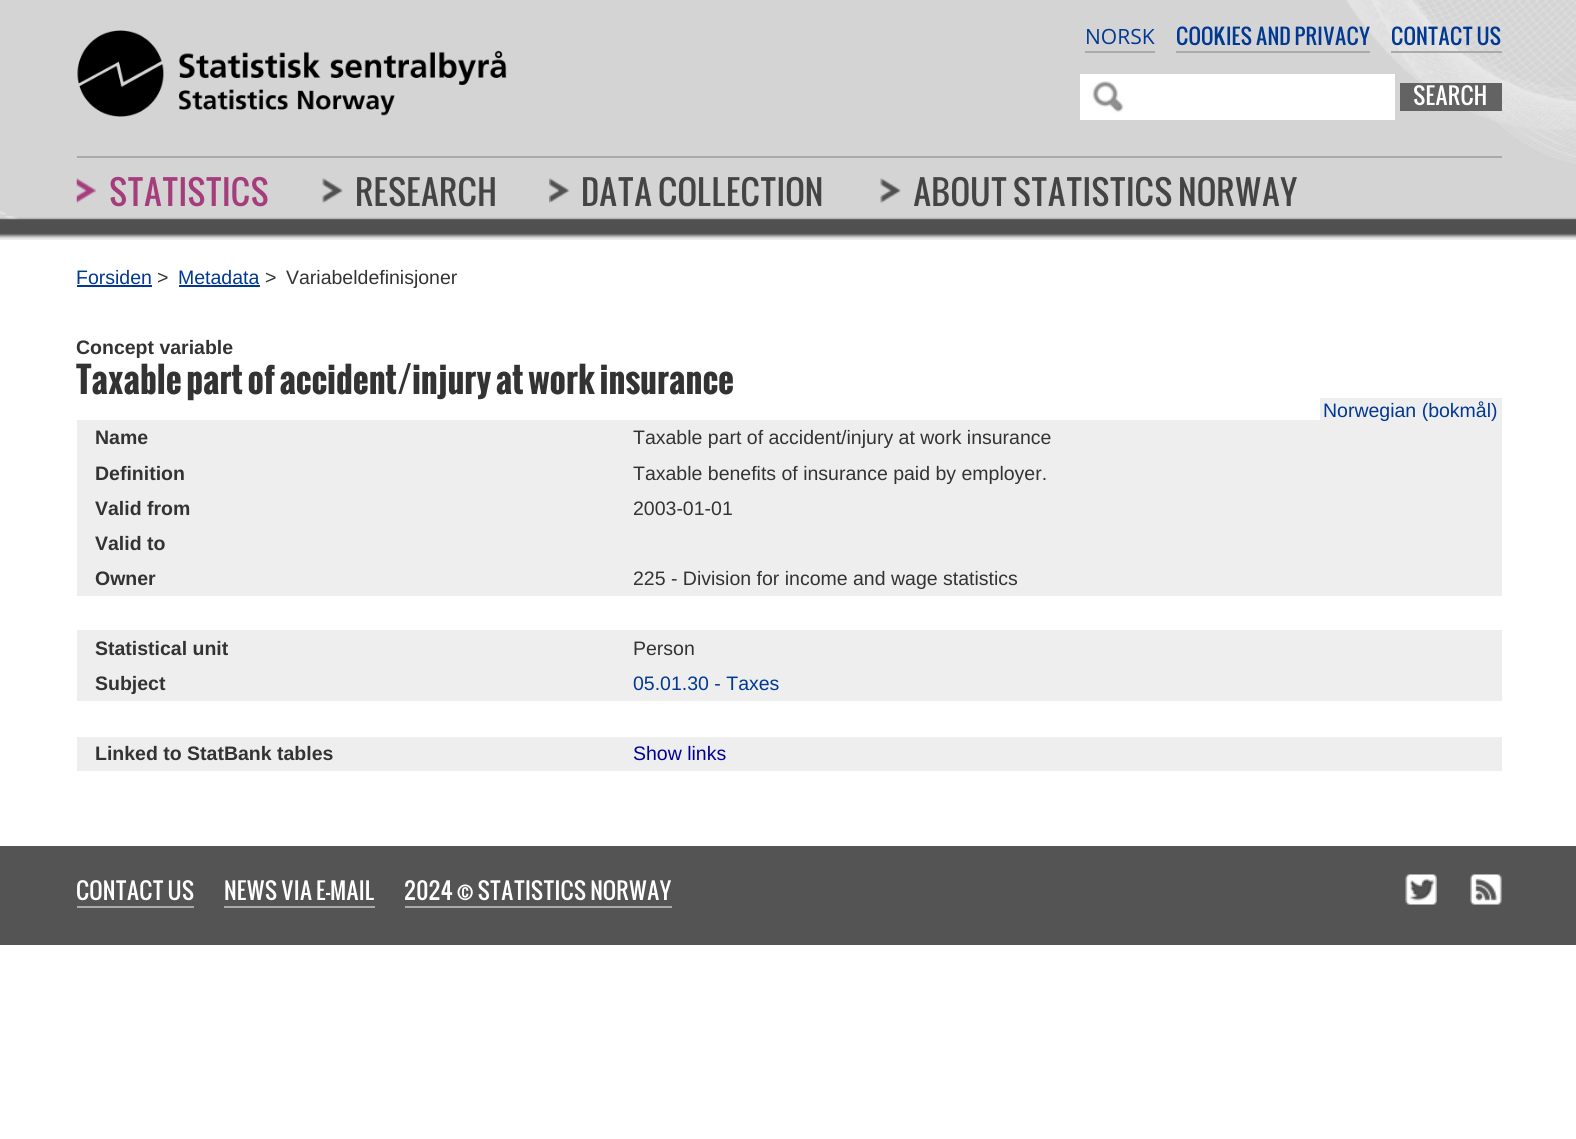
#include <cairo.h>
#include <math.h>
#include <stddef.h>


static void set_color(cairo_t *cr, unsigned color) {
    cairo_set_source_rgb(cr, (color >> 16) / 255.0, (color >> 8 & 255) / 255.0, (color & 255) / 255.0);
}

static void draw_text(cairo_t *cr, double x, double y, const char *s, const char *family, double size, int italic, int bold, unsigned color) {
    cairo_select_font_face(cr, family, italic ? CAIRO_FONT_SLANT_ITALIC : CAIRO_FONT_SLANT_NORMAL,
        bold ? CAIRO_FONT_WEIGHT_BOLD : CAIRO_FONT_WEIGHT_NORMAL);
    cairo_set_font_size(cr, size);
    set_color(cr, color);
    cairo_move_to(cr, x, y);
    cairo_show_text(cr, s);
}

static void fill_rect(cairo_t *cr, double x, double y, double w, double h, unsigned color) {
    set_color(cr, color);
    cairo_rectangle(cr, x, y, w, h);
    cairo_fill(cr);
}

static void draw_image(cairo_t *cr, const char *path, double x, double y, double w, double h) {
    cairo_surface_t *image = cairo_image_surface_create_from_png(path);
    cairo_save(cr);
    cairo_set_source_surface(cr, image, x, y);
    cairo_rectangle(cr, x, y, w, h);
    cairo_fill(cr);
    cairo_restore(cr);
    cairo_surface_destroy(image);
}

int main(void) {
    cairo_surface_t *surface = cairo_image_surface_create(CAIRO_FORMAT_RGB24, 1576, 1139);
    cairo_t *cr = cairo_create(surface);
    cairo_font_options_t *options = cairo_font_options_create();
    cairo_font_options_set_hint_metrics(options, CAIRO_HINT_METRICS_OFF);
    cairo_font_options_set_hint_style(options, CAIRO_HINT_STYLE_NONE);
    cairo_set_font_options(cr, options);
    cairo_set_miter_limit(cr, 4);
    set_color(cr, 0xFFFFFF);
    cairo_paint(cr);
    draw_image(cr, "assets/img1.png", 0, 0, 1576, 240);
    draw_image(cr, "assets/img2.png", 77, 30, 430, 87);
    fill_rect(cr, 1085, 51, 70, 2, 0xAAAAAA);
    draw_text(cr, 1085, 44, "NORSK", "Open Sans", 21, 0, 0, 0x003892);
    fill_rect(cr, 1176, 51, 194, 2, 0xAAAAAA);
    draw_text(cr, 1176, 45, "COOKIES AND PRIVACY", "Oswald", 21, 0, 0, 0x003892);
    fill_rect(cr, 1391, 51, 111, 2, 0xAAAAAA);
    draw_text(cr, 1391, 45, "CONTACT US", "Oswald", 21, 0, 0, 0x003892);
    fill_rect(cr, 1080, 74, 315, 46, 0xFFFFFF);
    draw_image(cr, "assets/img3.png", 1092, 81, 32, 32);
    fill_rect(cr, 1400, 83, 102, 28, 0x636363);
    draw_text(cr, 1413, 105, "SEARCH", "Oswald", 22.5, 0, 0, 0xFFFFFF);
    fill_rect(cr, 77, 156, 1425, 2, 0xAAAAAA);
    draw_image(cr, "assets/img4.png", 76, 178, 20, 25);
    draw_text(cr, 109, 206, "STATISTICS", "Oswald", 33, 0, 0, 0xA53D7C);
    draw_image(cr, "assets/img5.png", 322, 178, 21, 25);
    draw_text(cr, 355, 206, "RESEARCH", "Oswald", 33, 0, 0, 0x444444);
    draw_image(cr, "assets/img6.png", 549, 178, 21, 25);
    draw_text(cr, 581, 206, "DATA COLLECTION", "Oswald", 33, 0, 0, 0x444444);
    draw_image(cr, "assets/img5.png", 880, 178, 21, 25);
    draw_text(cr, 913, 206, "ABOUT STATISTICS NORWAY", "Oswald", 33, 0, 0, 0x444444);
    draw_text(cr, 76, 284, "Forsiden", "Liberation Sans", 19.5, 0, 0, 0x003892);
    fill_rect(cr, 77, 285, 75, 2, 0x003892);
    draw_text(cr, 157, 284, ">", "Liberation Sans", 19.5, 0, 0, 0x333333);
    draw_text(cr, 178, 284, "Metadata", "Liberation Sans", 19.5, 0, 0, 0x003892);
    fill_rect(cr, 179, 285, 81, 2, 0x003892);
    draw_text(cr, 265, 284, ">", "Liberation Sans", 19.5, 0, 0, 0x333333);
    draw_text(cr, 286, 284, "Variabeldefinisjoner", "Liberation Sans", 19.5, 0, 0, 0x333333);
    draw_text(cr, 76, 354, "Concept variable", "Liberation Sans", 19.5, 0, 1, 0x333333);
    draw_text(cr, 76, 394, "Taxable part of accident/injury at work insurance", "Oswald", 34.5, 0, 1, 0x333333);
    fill_rect(cr, 1320, 398, 182, 22, 0xEEEEEE);
    fill_rect(cr, 77, 420, 1425, 36, 0xEEEEEE);
    draw_text(cr, 1323, 417, "Norwegian (bokmål)", "Liberation Sans", 19.5, 0, 0, 0x003892);
    draw_text(cr, 95, 444, "Name", "Liberation Sans", 19.5, 0, 1, 0x333333);
    draw_text(cr, 633, 444, "Taxable part of accident/injury at work insurance", "Liberation Sans", 19.5, 0, 0, 0x333333);
    fill_rect(cr, 77, 456, 1425, 35, 0xEEEEEE);
    draw_text(cr, 95, 480, "Definition", "Liberation Sans", 19.5, 0, 1, 0x333333);
    draw_text(cr, 633, 480, "Taxable benefits of insurance paid by employer.", "Liberation Sans", 19.5, 0, 0, 0x333333);
    fill_rect(cr, 77, 491, 1425, 34, 0xEEEEEE);
    draw_text(cr, 95, 515, "Valid from", "Liberation Sans", 19.5, 0, 1, 0x333333);
    draw_text(cr, 633, 515, "2003-01-01", "Liberation Sans", 19.5, 0, 0, 0x333333);
    fill_rect(cr, 77, 525, 1425, 36, 0xEEEEEE);
    draw_text(cr, 95, 550, "Valid to", "Liberation Sans", 19.5, 0, 1, 0x333333);
    fill_rect(cr, 77, 561, 1425, 35, 0xEEEEEE);
    draw_text(cr, 95, 585, "Owner", "Liberation Sans", 19.5, 0, 1, 0x333333);
    draw_text(cr, 633, 585, "225 - Division for income and wage statistics", "Liberation Sans", 19.5, 0, 0, 0x333333);
    fill_rect(cr, 77, 630, 1425, 36, 0xEEEEEE);
    draw_text(cr, 95, 655, "Statistical unit", "Liberation Sans", 19.5, 0, 1, 0x333333);
    draw_text(cr, 633, 655, "Person", "Liberation Sans", 19.5, 0, 0, 0x333333);
    fill_rect(cr, 77, 666, 1425, 35, 0xEEEEEE);
    draw_text(cr, 95, 690, "Subject", "Liberation Sans", 19.5, 0, 1, 0x333333);
    draw_text(cr, 633, 690, "05.01.30 - Taxes", "Liberation Sans", 19.5, 0, 0, 0x003892);
    fill_rect(cr, 77, 737, 1425, 34, 0xEEEEEE);
    draw_text(cr, 95, 760, "Linked to StatBank tables", "Liberation Sans", 19.5, 0, 1, 0x333333);
    draw_text(cr, 633, 760, "Show links", "Liberation Sans", 19.5, 0, 0, 0x000099);
    fill_rect(cr, 0, 846, 1576, 99, 0x545454);
    fill_rect(cr, 77, 906, 117, 2, 0xAAAAAA);
    draw_text(cr, 76, 900, "CONTACT US", "Oswald", 22.5, 0, 0, 0xFFFFFF);
    fill_rect(cr, 224, 906, 151, 2, 0xAAAAAA);
    draw_text(cr, 224, 900, "NEWS VIA E-MAIL", "Oswald", 22.5, 0, 0, 0xFFFFFF);
    fill_rect(cr, 405, 906, 267, 2, 0xAAAAAA);
    draw_text(cr, 404, 900, "2024 © STATISTICS NORWAY", "Oswald", 22.5, 0, 0, 0xFFFFFF);
    draw_image(cr, "assets/img7.png", 1405, 874, 32, 31);
    draw_image(cr, "assets/img8.png", 1470, 874, 32, 31);
    cairo_surface_write_to_png(surface, "output.png");
    cairo_font_options_destroy(options);
    cairo_destroy(cr);
    cairo_surface_destroy(surface);
    return 0;
}
